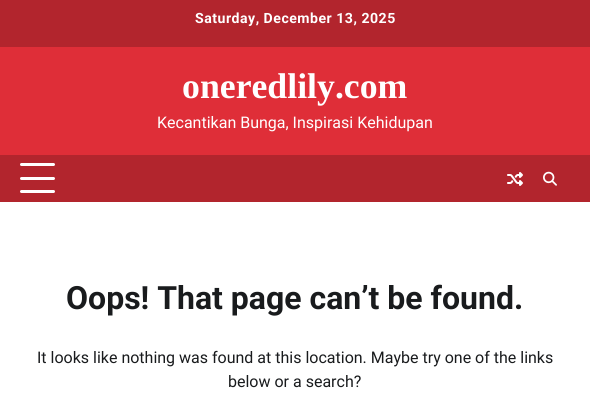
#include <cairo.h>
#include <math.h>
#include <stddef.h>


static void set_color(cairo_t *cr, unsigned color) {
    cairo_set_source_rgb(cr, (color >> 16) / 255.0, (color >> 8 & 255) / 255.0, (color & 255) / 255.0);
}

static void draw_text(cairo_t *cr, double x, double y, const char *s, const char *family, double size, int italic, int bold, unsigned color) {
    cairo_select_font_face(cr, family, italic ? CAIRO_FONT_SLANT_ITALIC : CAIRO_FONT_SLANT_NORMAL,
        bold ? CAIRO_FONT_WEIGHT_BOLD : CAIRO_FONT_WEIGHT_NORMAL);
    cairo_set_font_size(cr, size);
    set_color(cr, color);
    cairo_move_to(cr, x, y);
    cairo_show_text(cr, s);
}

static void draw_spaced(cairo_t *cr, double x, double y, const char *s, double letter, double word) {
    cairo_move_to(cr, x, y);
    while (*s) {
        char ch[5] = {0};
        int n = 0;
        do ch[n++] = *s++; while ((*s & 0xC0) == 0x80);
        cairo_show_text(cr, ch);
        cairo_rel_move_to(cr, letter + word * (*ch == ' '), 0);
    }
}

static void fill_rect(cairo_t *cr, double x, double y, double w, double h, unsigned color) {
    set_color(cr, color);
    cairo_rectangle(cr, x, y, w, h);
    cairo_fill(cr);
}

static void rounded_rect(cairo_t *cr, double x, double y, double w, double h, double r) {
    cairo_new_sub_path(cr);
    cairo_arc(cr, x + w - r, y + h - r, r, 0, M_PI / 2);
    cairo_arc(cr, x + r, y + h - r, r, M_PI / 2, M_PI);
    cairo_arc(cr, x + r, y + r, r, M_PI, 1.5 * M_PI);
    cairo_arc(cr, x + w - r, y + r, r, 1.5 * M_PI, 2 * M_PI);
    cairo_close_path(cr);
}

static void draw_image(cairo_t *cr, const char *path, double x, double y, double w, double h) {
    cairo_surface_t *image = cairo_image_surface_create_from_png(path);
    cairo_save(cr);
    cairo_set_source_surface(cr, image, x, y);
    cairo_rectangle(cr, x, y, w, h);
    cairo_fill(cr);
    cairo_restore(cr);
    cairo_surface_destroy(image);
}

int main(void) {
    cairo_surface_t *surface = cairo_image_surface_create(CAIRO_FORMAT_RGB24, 590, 418);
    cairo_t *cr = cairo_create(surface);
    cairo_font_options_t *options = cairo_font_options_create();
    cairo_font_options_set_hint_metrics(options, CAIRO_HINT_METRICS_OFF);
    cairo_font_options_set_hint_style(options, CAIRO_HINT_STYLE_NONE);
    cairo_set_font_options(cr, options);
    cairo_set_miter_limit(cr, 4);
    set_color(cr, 0xFFFFFF);
    cairo_paint(cr);
    fill_rect(cr, 0, 47, 590, 108, 0xDF2E38);
    fill_rect(cr, 0, 0, 590, 47, 0xB2252D);
    cairo_select_font_face(cr, "Roboto", CAIRO_FONT_SLANT_NORMAL, CAIRO_FONT_WEIGHT_BOLD);
    cairo_set_font_size(cr, 14.1);
    set_color(cr, 0xFFFFFF);
    draw_spaced(cr, 195, 23, "Saturday, December 13, 2025", 0.5, 0);
    draw_text(cr, 182, 98, "oneredlily.com", "Liberation Serif", 35.75, 0, 1, 0xFFFFFF);
    draw_text(cr, 157, 128, "Kecantikan Bunga, Inspirasi Kehidupan", "Roboto", 16, 0, 0, 0xFFFFFF);
    fill_rect(cr, 0, 155, 590, 47, 0xB2252D);
    set_color(cr, 0xFFFFFF);
    rounded_rect(cr, 20, 163, 35, 3, 1.5);
    cairo_fill(cr);
    rounded_rect(cr, 20, 177, 35, 3, 1.5);
    cairo_fill(cr);
    rounded_rect(cr, 20, 190, 35, 3, 1.5);
    cairo_fill(cr);
    draw_image(cr, "assets/img1.png", 507, 172, 16, 14);
    draw_image(cr, "assets/img2.png", 543, 171, 14, 15);
    draw_text(cr, 66, 309, "Oops! That page can’t be found.", "Roboto", 32, 0, 1, 0x191B1D);
    draw_text(cr, 37, 363, "It looks like nothing was found at this location. Maybe try one of the links", "Roboto", 16, 0, 0, 0x191B1D);
    draw_text(cr, 228, 387, "below or a search?", "Roboto", 16, 0, 0, 0x191B1D);
    cairo_surface_write_to_png(surface, "output.png");
    cairo_font_options_destroy(options);
    cairo_destroy(cr);
    cairo_surface_destroy(surface);
    return 0;
}
